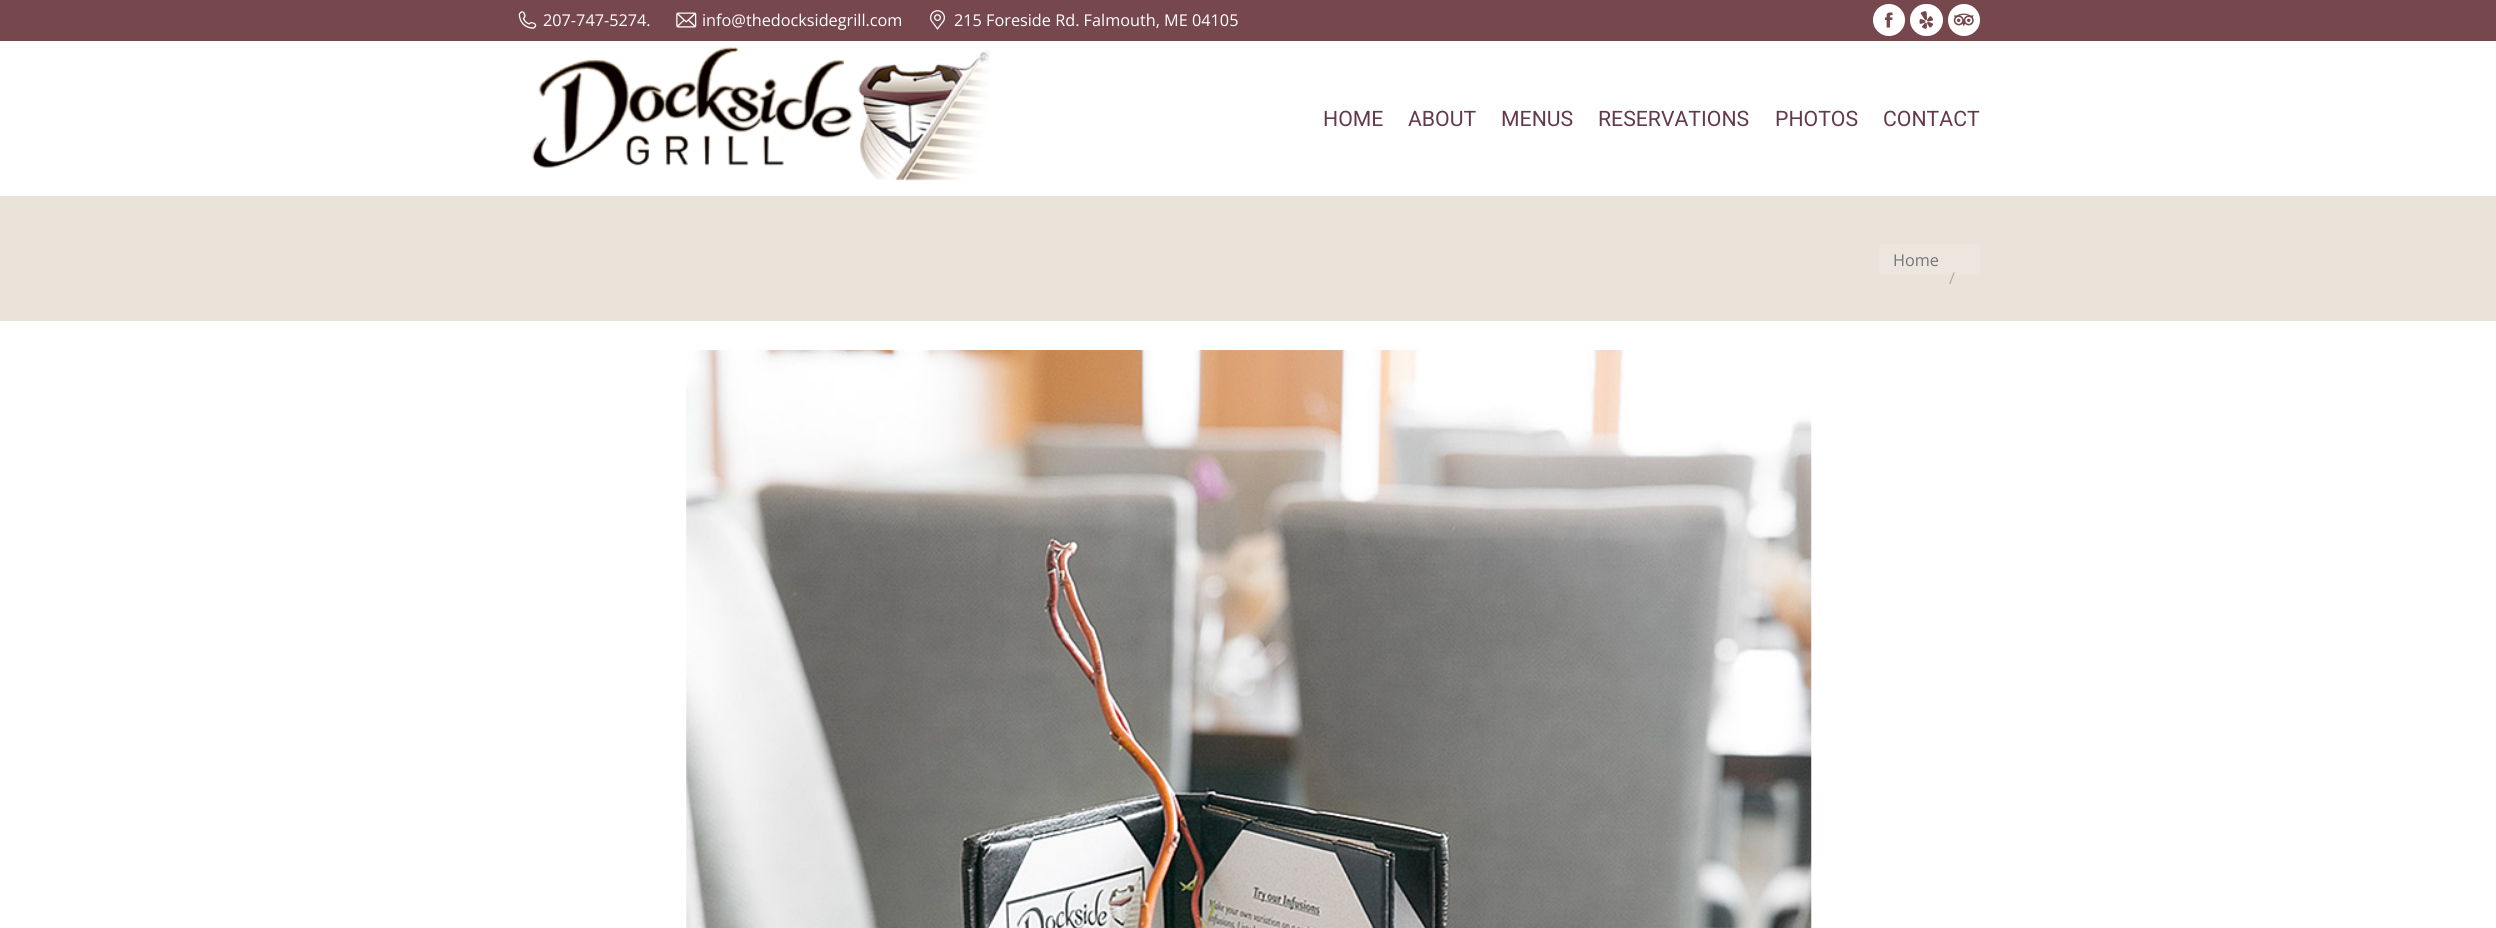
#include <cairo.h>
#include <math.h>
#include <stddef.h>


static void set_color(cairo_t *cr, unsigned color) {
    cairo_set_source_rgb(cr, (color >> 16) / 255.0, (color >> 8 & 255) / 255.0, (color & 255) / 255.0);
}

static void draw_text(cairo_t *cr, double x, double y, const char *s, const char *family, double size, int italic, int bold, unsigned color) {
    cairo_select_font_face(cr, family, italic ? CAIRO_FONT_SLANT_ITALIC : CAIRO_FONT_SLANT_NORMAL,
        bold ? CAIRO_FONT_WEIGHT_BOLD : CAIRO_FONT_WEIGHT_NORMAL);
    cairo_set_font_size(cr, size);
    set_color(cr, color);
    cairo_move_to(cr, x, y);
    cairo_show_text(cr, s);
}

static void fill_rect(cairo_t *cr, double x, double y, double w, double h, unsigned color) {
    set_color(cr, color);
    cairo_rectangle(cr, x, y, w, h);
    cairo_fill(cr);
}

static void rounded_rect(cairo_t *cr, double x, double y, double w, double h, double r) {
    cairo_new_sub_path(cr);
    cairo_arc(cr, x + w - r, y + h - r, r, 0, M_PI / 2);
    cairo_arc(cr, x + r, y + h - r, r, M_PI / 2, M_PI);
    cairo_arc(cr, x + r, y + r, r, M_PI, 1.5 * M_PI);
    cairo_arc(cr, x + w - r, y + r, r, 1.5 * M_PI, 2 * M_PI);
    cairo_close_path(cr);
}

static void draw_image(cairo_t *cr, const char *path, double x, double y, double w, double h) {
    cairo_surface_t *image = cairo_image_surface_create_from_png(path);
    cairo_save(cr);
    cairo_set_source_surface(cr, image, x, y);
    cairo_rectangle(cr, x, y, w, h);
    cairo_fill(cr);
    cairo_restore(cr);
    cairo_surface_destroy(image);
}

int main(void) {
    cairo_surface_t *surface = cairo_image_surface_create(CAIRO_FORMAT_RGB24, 2496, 928);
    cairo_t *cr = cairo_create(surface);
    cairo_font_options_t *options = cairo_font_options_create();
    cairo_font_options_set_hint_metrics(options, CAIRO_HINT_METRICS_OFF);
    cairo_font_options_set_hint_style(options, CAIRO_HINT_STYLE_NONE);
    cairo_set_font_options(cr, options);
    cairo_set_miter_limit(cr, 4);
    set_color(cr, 0xFFFFFF);
    cairo_paint(cr);
    fill_rect(cr, 0, 0, 2496, 41, 0x76484D);
    draw_image(cr, "assets/img1.png", 518, 11, 19, 18);
    draw_text(cr, 543, 26, "207-747-5274.", "Open Sans", 16.25, 0, 0, 0xFFFFFF);
    draw_image(cr, "assets/img2.png", 676, 12, 21, 16);
    draw_text(cr, 702, 26, "info@thedocksidegrill.com", "Open Sans", 16.25, 0, 0, 0xFFFFFF);
    draw_image(cr, "assets/img3.png", 930, 10, 15, 20);
    draw_text(cr, 954, 26, "215 Foreside Rd. Falmouth, ME 04105", "Open Sans", 16.25, 0, 0, 0xFFFFFF);
    cairo_new_path(cr);
    cairo_arc(cr, 1889, 20, 16, 0, 2 * M_PI);
    cairo_fill(cr);
    draw_image(cr, "assets/img4.png", 1885, 12, 8, 16);
    rounded_rect(cr, 1910, 4, 33, 32, 16);
    cairo_fill(cr);
    draw_image(cr, "assets/img5.png", 1919, 11, 14, 18);
    cairo_arc(cr, 1964, 20, 16, 0, 2 * M_PI);
    cairo_fill(cr);
    draw_image(cr, "assets/img6.png", 1953, 13, 21, 14);
    draw_image(cr, "assets/img7.png", 531, 47, 459, 134);
    draw_text(cr, 1323, 126, "HOME", "Roboto", 21.25, 0, 0, 0x65394C);
    draw_text(cr, 1408, 126, "ABOUT", "Roboto", 21.25, 0, 0, 0x65394C);
    draw_text(cr, 1501, 126, "MENUS", "Roboto", 21.25, 0, 0, 0x65394C);
    draw_text(cr, 1598, 126, "RESERVATIONS", "Roboto", 21.25, 0, 0, 0x65394C);
    draw_text(cr, 1775, 126, "PHOTOS", "Roboto", 21.25, 0, 0, 0x65394C);
    draw_text(cr, 1883, 126, "CONTACT", "Roboto", 21.25, 0, 0, 0x65394C);
    fill_rect(cr, 0, 196, 2496, 125, 0xEAE3DA);
    set_color(cr, 0xEDE6DE);
    rounded_rect(cr, 1879, 244, 101, 31, 5);
    cairo_fill(cr);
    draw_text(cr, 1893, 266, "Home", "Open Sans", 16.25, 0, 0, 0x727575);
    draw_text(cr, 1949, 284, "/", "Open Sans", 16.25, 0, 0, 0xAEACA8);
    draw_image(cr, "assets/img8.png", 686, 350, 1126, 578);
    cairo_surface_write_to_png(surface, "output.png");
    cairo_font_options_destroy(options);
    cairo_destroy(cr);
    cairo_surface_destroy(surface);
    return 0;
}
